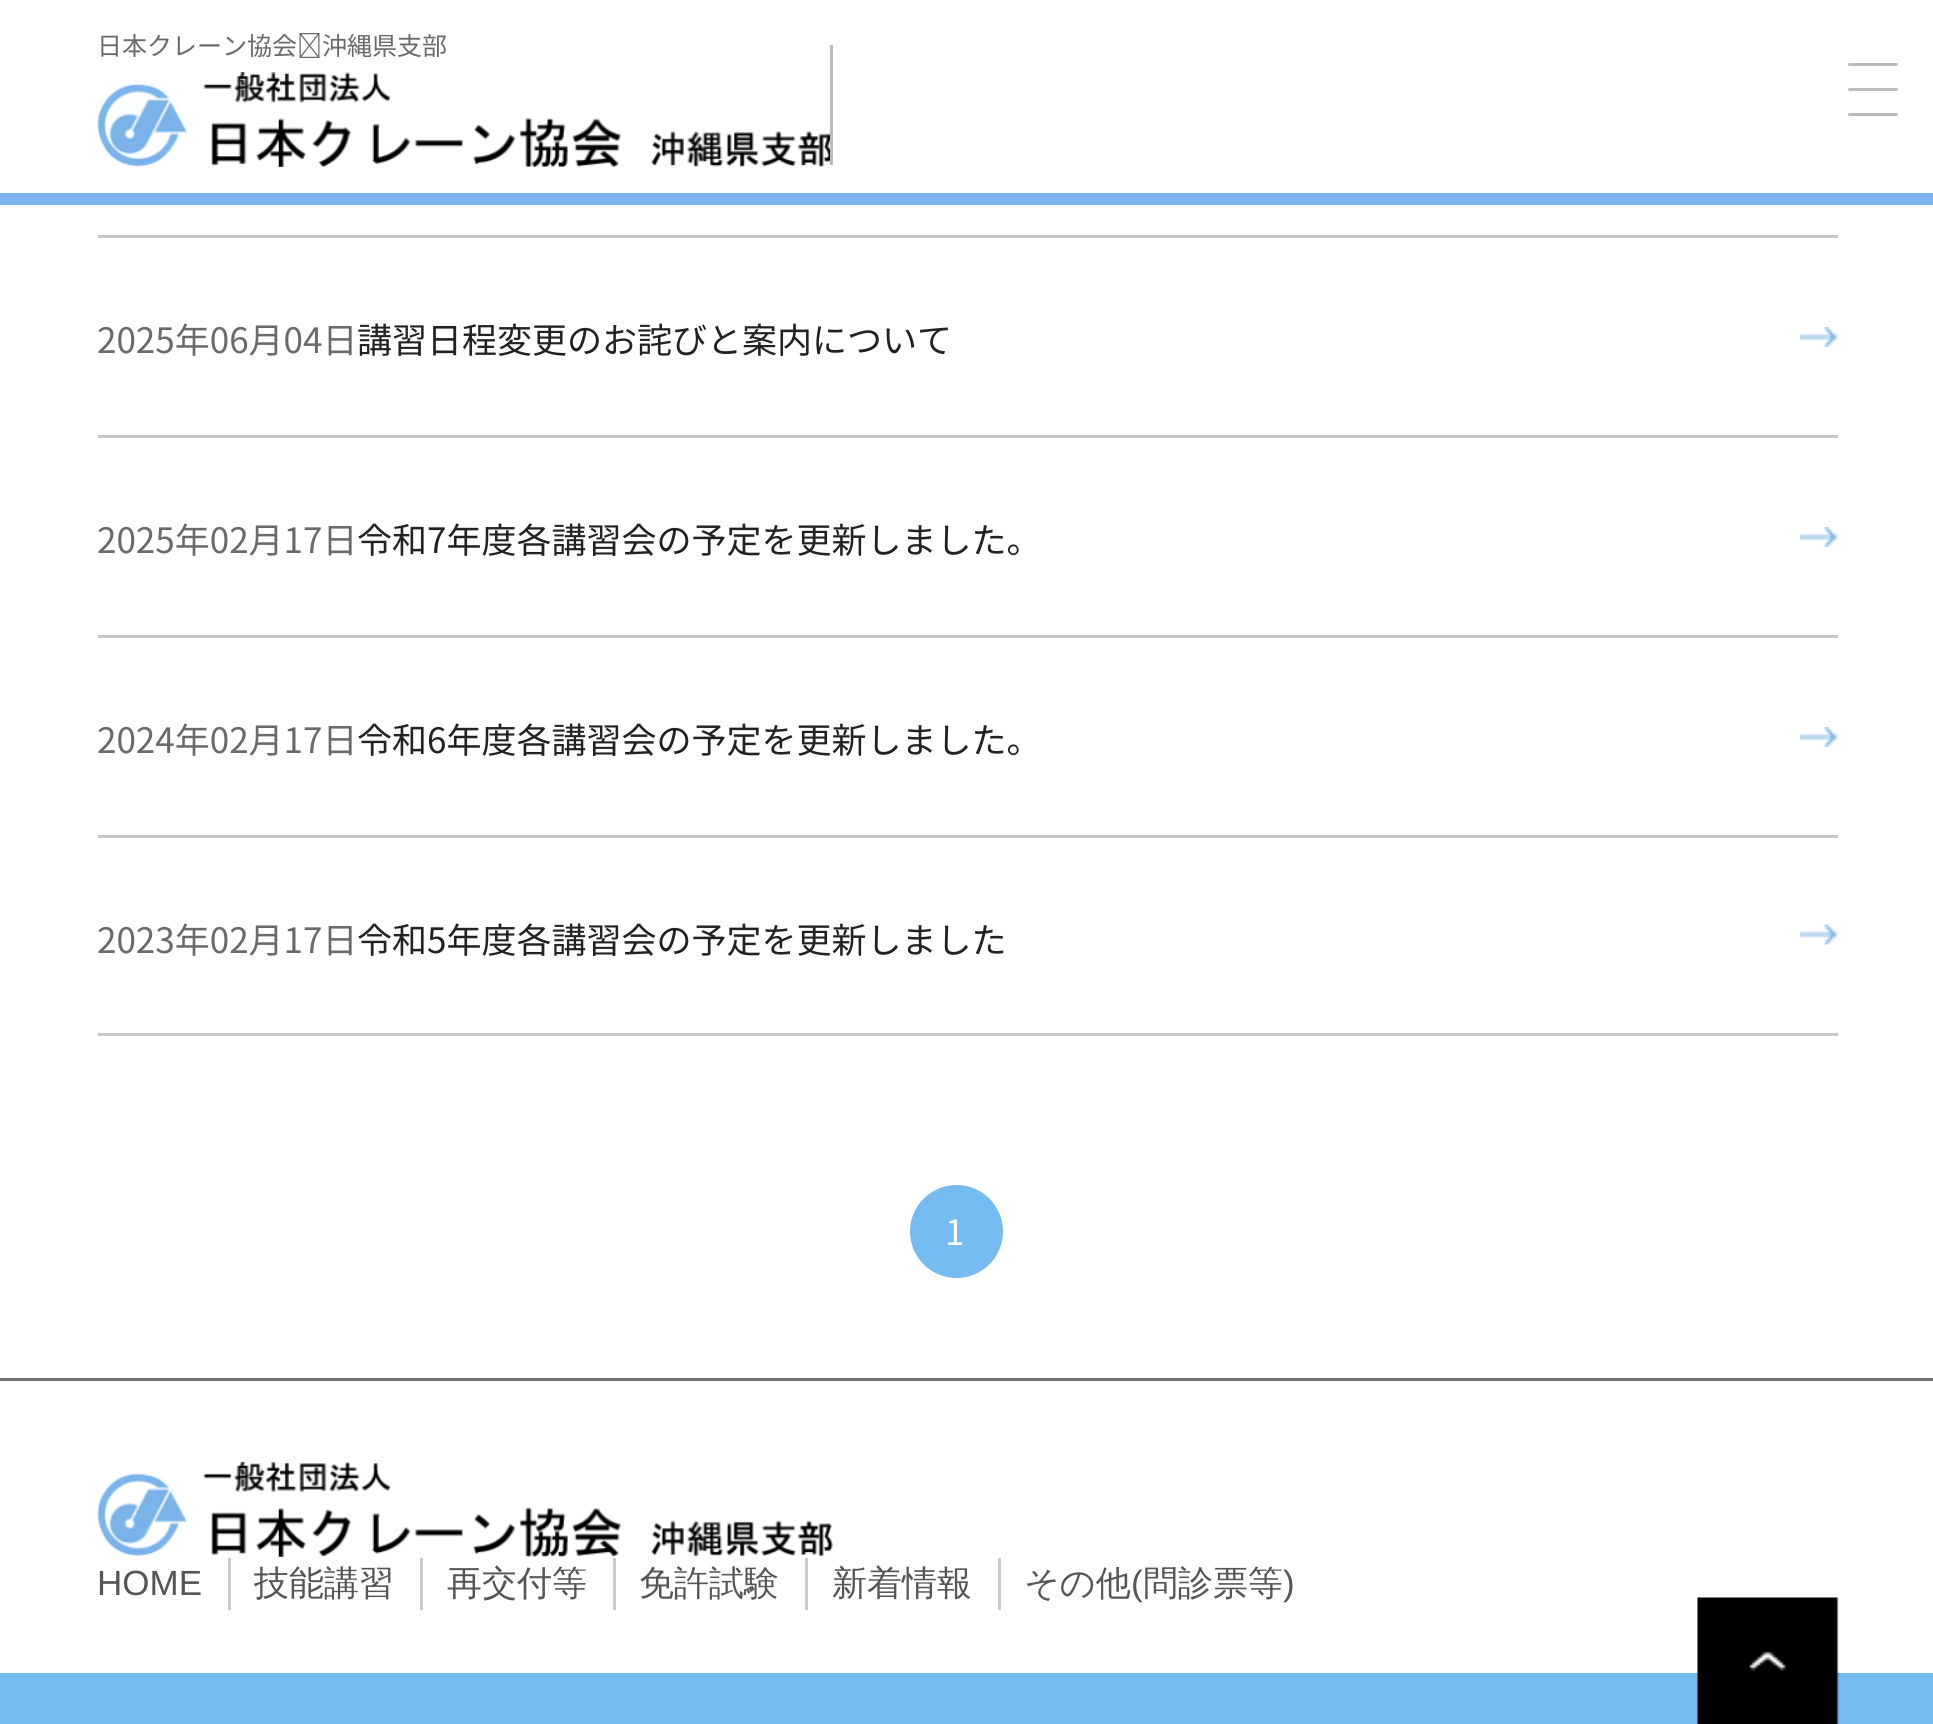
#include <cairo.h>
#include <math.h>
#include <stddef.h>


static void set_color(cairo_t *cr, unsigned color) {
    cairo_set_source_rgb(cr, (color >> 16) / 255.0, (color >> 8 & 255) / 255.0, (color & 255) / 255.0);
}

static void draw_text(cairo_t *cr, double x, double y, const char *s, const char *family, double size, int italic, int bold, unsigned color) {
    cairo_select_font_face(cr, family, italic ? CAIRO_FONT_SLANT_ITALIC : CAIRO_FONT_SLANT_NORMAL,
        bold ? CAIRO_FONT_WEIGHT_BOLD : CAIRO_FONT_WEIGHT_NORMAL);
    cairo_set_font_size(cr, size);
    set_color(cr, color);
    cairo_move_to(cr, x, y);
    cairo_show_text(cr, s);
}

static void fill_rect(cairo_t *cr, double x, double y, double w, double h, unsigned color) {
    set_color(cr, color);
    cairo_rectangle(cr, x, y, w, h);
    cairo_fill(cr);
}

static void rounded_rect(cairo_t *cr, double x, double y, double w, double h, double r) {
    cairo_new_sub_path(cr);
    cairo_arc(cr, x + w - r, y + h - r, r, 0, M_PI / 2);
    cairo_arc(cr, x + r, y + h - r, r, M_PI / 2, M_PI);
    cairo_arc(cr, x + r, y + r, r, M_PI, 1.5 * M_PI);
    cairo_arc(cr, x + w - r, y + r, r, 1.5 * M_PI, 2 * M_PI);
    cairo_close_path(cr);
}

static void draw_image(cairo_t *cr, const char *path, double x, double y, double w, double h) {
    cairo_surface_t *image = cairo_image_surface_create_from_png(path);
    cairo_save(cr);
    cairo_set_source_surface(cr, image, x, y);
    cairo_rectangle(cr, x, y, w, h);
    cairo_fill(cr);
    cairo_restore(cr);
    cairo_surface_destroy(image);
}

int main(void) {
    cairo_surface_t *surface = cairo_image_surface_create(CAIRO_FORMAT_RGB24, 1933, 1724);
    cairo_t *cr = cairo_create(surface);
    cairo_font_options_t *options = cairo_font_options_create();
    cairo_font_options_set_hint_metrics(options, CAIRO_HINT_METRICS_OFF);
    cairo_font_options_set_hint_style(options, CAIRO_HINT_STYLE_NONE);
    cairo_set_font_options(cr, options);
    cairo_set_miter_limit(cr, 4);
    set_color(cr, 0xFFFFFF);
    cairo_paint(cr);
    fill_rect(cr, 0, 193, 1933, 12, 0x7BB5EB);
    draw_text(cr, 97, 55, "日本クレーン協会 沖縄県支部", "Noto Sans JP Thin", 25, 0, 0, 0x6A6A6A);
    draw_image(cr, "assets/img1.png", 97, 72, 735, 95);
    fill_rect(cr, 830, 45, 3, 120, 0xBCBCBC);
    rounded_rect(cr, 1848, 63, 50, 3, 1.5);
    cairo_fill(cr);
    rounded_rect(cr, 1848, 88, 50, 3, 1.5);
    cairo_fill(cr);
    rounded_rect(cr, 1848, 113, 50, 3, 1.5);
    cairo_fill(cr);
    fill_rect(cr, 98, 235, 1740, 3, 0xC6C6C6);
    draw_text(cr, 97, 353, "2025年06月04日", "Noto Sans JP Thin", 35, 0, 0, 0x6A6A6A);
    draw_text(cr, 357, 353, "講習日程変更のお詫びと案内について", "Noto Sans JP Thin", 35, 0, 0, 0x222222);
    draw_image(cr, "assets/img2.png", 1800, 327, 38, 20);
    fill_rect(cr, 98, 435, 1740, 3, 0xC6C6C6);
    draw_text(cr, 97, 553, "2025年02月17日", "Noto Sans JP Thin", 35, 0, 0, 0x6A6A6A);
    draw_text(cr, 357, 553, "令和7年度各講習会の予定を更新しました。", "Noto Sans JP Thin", 35, 0, 0, 0x222222);
    draw_image(cr, "assets/img2.png", 1800, 527, 38, 20);
    fill_rect(cr, 98, 635, 1740, 3, 0xC6C6C6);
    draw_text(cr, 97, 753, "2024年02月17日", "Noto Sans JP Thin", 35, 0, 0, 0x6A6A6A);
    draw_text(cr, 357, 753, "令和6年度各講習会の予定を更新しました。", "Noto Sans JP Thin", 35, 0, 0, 0x222222);
    draw_image(cr, "assets/img2.png", 1800, 727, 38, 20);
    fill_rect(cr, 98, 835, 1740, 3, 0xC6C6C6);
    fill_rect(cr, 98, 1033, 1740, 3, 0xC6C6C6);
    draw_text(cr, 97, 953, "2023年02月17日", "Noto Sans JP Thin", 35, 0, 0, 0x6A6A6A);
    draw_text(cr, 357, 953, "令和5年度各講習会の予定を更新しました", "Noto Sans JP Thin", 35, 0, 0, 0x222222);
    draw_image(cr, "assets/img3.png", 1800, 924, 38, 21);
    set_color(cr, 0x74BBF1);
    cairo_arc(cr, 956.5, 1231.5, 46.5, 0, 2 * M_PI);
    cairo_fill(cr);
    draw_text(cr, 945, 1245, "1", "Noto Sans JP Thin", 35, 0, 0, 0xFFFFFF);
    fill_rect(cr, 0, 1673, 1933, 51, 0x74BBF1);
    draw_image(cr, "assets/img4.png", 1697, 1597, 142, 127);
    fill_rect(cr, 0, 1378, 1933, 3, 0x707070);
    draw_image(cr, "assets/img5.png", 97, 1462, 736, 95);
    fill_rect(cr, 228, 1558, 3, 52, 0xCCCCCC);
    draw_text(cr, 97, 1595, "HOME", "Liberation Sans", 35, 0, 0, 0x555555);
    fill_rect(cr, 420, 1558, 3, 52, 0xCCCCCC);
    draw_text(cr, 254, 1595, "技能講習", "WenQuanYi Zen Hei Medium", 35, 0, 0, 0x555555);
    fill_rect(cr, 613, 1558, 3, 52, 0xCCCCCC);
    draw_text(cr, 447, 1595, "再交付等", "WenQuanYi Zen Hei Medium", 35, 0, 0, 0x555555);
    fill_rect(cr, 805, 1558, 3, 52, 0xCCCCCC);
    draw_text(cr, 639, 1595, "免許試験", "WenQuanYi Zen Hei Medium", 35, 0, 0, 0x555555);
    fill_rect(cr, 998, 1558, 3, 52, 0xCCCCCC);
    draw_text(cr, 832, 1595, "新着情報", "WenQuanYi Zen Hei Medium", 35, 0, 0, 0x555555);
    draw_text(cr, 1024, 1595, "その他", "WenQuanYi Zen Hei Medium", 35, 0, 0, 0x555555);
    draw_text(cr, 1131, 1595, "(", "Liberation Sans", 35, 0, 0, 0x555555);
    draw_text(cr, 1143, 1595, "問診票等", "WenQuanYi Zen Hei Medium", 35, 0, 0, 0x555555);
    draw_text(cr, 1283, 1595, ")", "Liberation Sans", 35, 0, 0, 0x555555);
    cairo_surface_write_to_png(surface, "output.png");
    cairo_font_options_destroy(options);
    cairo_destroy(cr);
    cairo_surface_destroy(surface);
    return 0;
}
